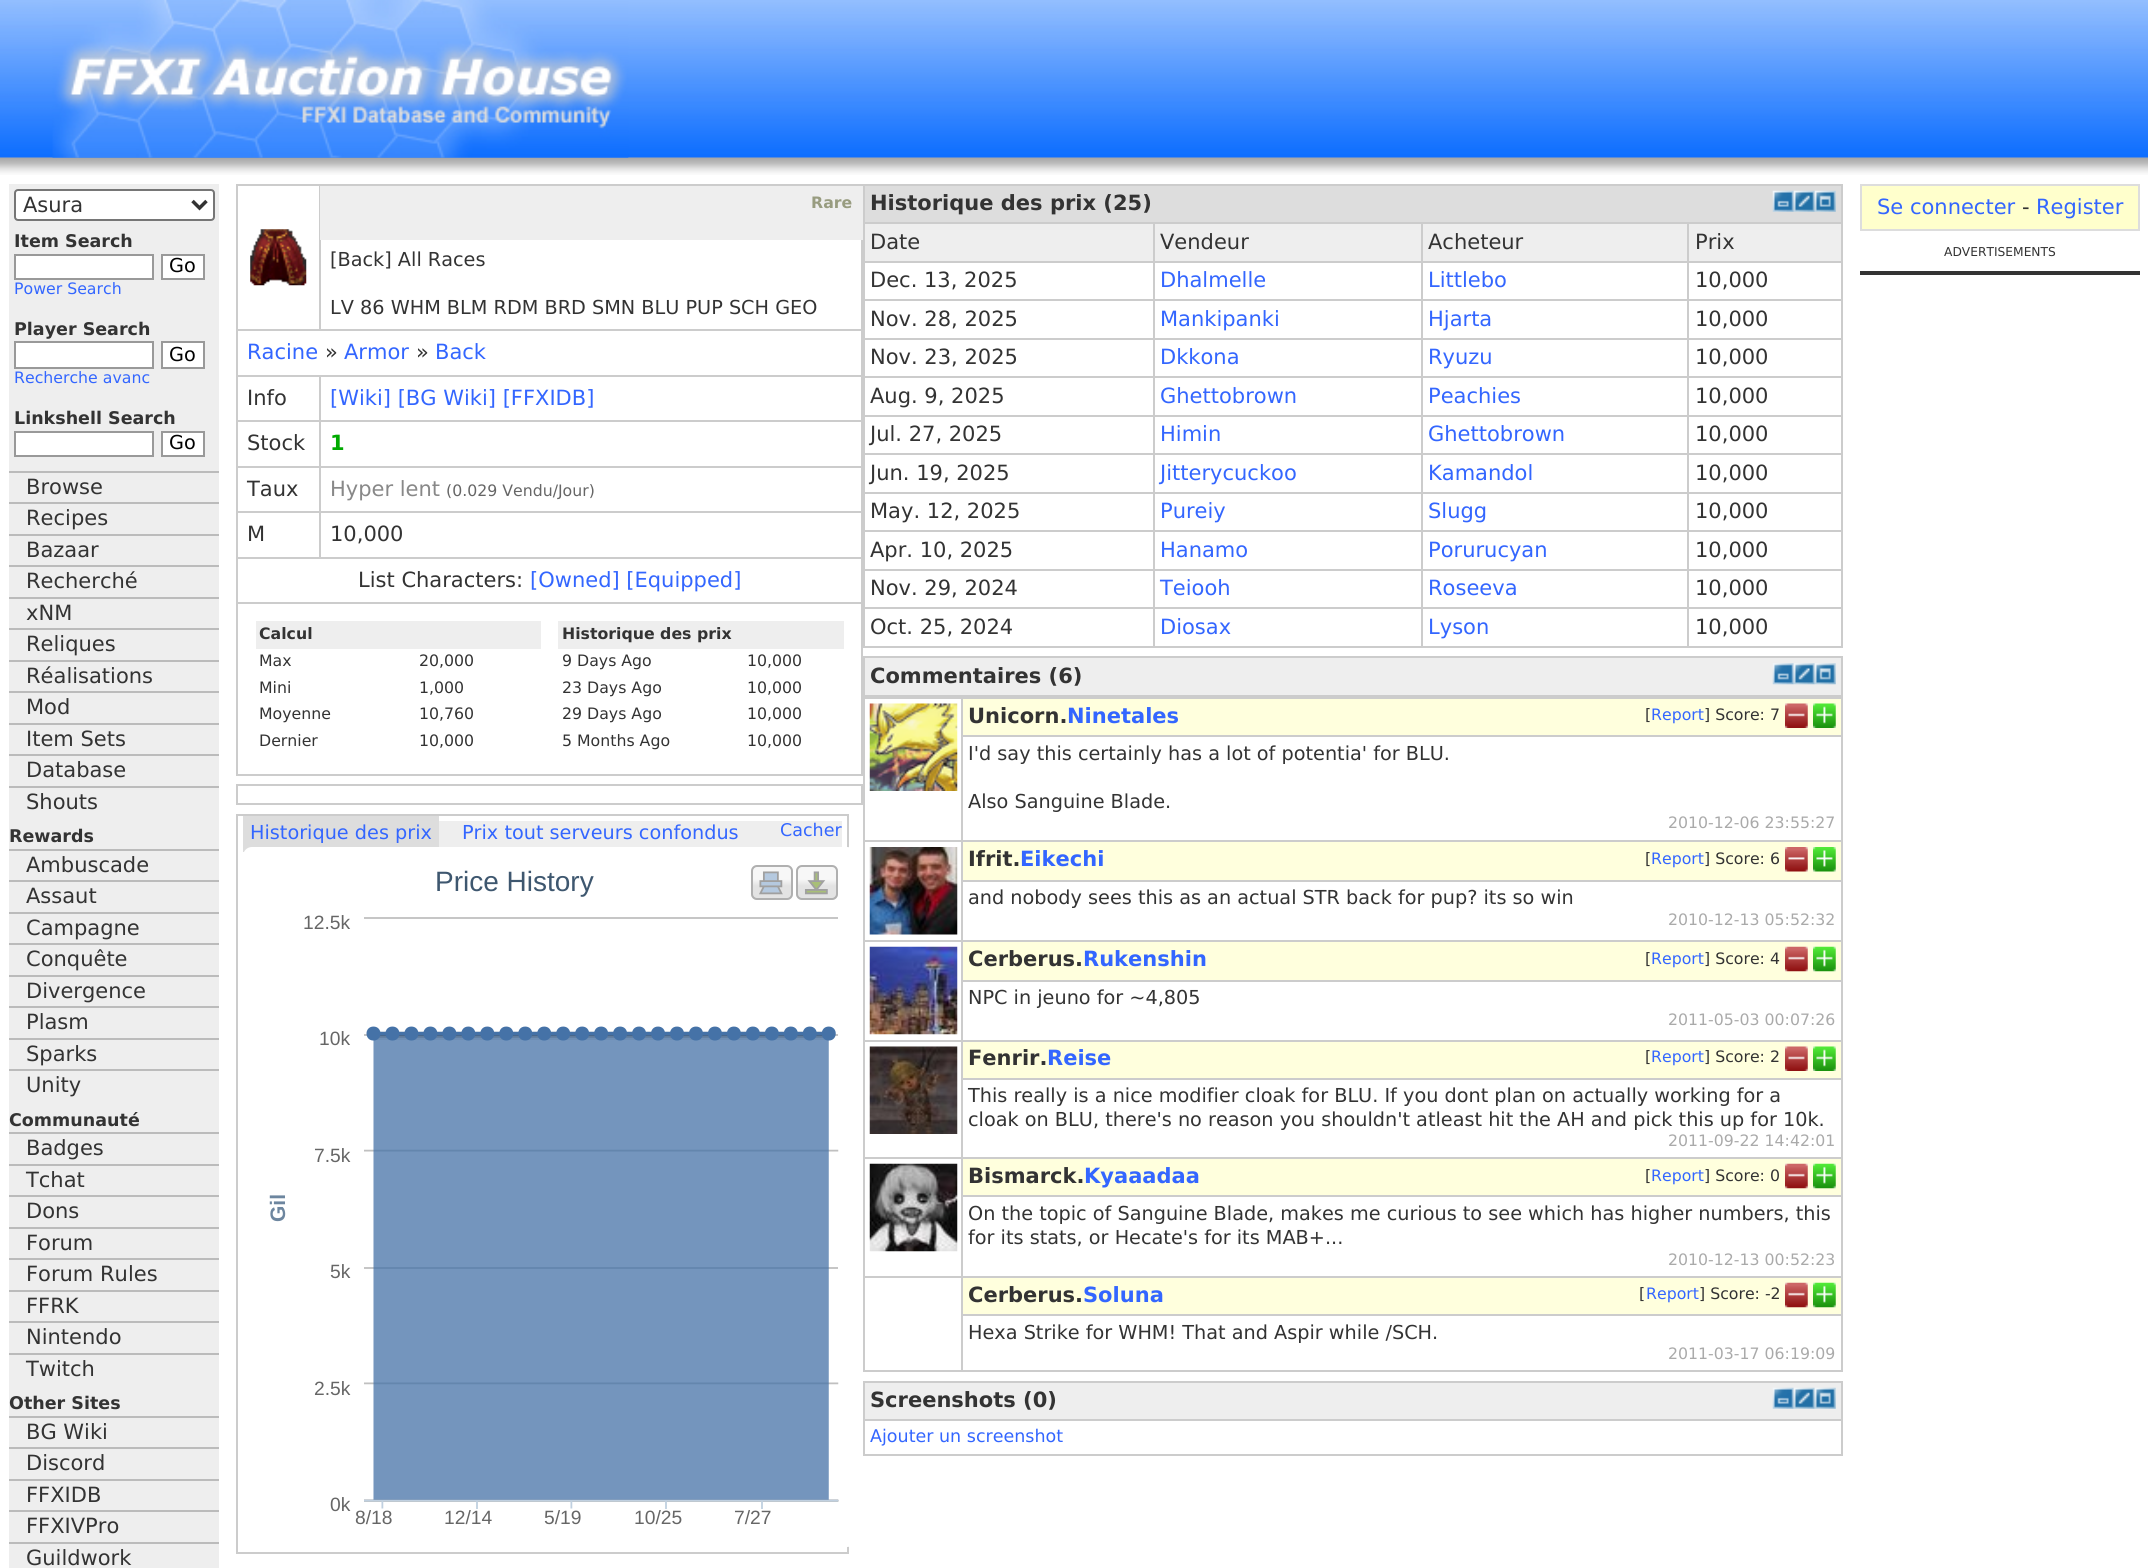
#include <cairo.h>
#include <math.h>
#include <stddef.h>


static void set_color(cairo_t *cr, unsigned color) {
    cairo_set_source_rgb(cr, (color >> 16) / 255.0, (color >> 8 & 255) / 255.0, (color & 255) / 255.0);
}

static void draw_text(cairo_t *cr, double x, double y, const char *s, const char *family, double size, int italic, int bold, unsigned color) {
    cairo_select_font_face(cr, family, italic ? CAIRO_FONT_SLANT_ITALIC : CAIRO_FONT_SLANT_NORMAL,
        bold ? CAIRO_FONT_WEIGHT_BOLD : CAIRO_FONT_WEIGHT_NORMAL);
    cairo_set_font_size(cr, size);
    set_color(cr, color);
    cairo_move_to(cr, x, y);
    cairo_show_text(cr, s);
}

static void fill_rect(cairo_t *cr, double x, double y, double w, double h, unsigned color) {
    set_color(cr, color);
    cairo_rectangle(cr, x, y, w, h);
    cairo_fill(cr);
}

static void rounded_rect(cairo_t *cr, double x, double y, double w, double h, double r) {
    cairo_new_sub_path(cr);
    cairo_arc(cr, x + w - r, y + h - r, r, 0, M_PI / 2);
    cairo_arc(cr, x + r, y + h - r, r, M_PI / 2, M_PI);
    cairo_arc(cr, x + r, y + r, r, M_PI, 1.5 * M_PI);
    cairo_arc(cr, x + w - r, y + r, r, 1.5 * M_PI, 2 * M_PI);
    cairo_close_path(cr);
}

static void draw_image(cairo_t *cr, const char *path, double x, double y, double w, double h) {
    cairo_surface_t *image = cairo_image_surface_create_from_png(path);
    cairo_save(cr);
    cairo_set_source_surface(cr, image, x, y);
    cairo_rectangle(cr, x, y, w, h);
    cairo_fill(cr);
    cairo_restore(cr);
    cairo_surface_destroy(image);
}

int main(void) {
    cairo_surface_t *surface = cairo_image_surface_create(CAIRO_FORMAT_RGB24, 2148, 1568);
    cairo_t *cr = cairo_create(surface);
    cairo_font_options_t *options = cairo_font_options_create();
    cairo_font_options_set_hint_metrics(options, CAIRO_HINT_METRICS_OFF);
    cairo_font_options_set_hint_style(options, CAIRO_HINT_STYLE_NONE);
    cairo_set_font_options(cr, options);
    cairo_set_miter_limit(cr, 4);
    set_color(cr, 0xFFFFFF);
    cairo_paint(cr);
    draw_image(cr, "assets/img1.png", 0, 0, 2148, 175);
    draw_image(cr, "assets/img2.png", 52, 0, 577, 158);
    fill_rect(cr, 9, 184, 210, 1384, 0xEEEEEE);
    set_color(cr, 0xFFFFFF);
    rounded_rect(cr, 15, 190, 199, 30, 3);
    cairo_fill_preserve(cr);
    set_color(cr, 0x767676);
    cairo_stroke(cr);
    cairo_new_path(cr);
    cairo_move_to(cr, 192.5, 201);
    cairo_line_to(cr, 199.5, 208);
    cairo_line_to(cr, 206.5, 201);
    set_color(cr, 0x333333);
    cairo_set_line_width(cr, 3.5);
    cairo_stroke(cr);
    draw_text(cr, 23, 212, "Asura", "DejaVu Sans", 21, 0, 0, 0x333333);
    draw_text(cr, 14, 247, "Item Search", "DejaVu Sans", 17.5, 0, 1, 0x333333);
    set_color(cr, 0xFFFFFF);
    cairo_rectangle(cr, 15, 255, 138, 24);
    cairo_fill_preserve(cr);
    set_color(cr, 0x999999);
    cairo_set_line_width(cr, 2);
    cairo_stroke(cr);
    set_color(cr, 0xFFFFFF);
    cairo_rectangle(cr, 162, 255, 42, 24);
    cairo_fill_preserve(cr);
    set_color(cr, 0x999999);
    cairo_stroke(cr);
    draw_text(cr, 169, 272, "Go", "DejaVu Sans", 19.25, 0, 0, 0x000000);
    draw_text(cr, 14, 294, "Power Search", "DejaVu Sans", 15.75, 0, 0, 0x3366FF);
    draw_text(cr, 14, 335, "Player Search", "DejaVu Sans", 17.5, 0, 1, 0x333333);
    set_color(cr, 0xFFFFFF);
    cairo_rectangle(cr, 15, 342, 138, 26);
    cairo_fill_preserve(cr);
    set_color(cr, 0x999999);
    cairo_stroke(cr);
    set_color(cr, 0xFFFFFF);
    cairo_rectangle(cr, 162, 342, 42, 26);
    cairo_fill_preserve(cr);
    set_color(cr, 0x999999);
    cairo_stroke(cr);
    draw_text(cr, 169, 361, "Go", "DejaVu Sans", 19.25, 0, 0, 0x000000);
    draw_text(cr, 14, 383, "Recherche avanc", "DejaVu Sans", 15.75, 0, 0, 0x3366FF);
    draw_text(cr, 14, 424, "Linkshell Search", "DejaVu Sans", 17.5, 0, 1, 0x333333);
    set_color(cr, 0xFFFFFF);
    cairo_rectangle(cr, 15, 432, 138, 24);
    cairo_fill_preserve(cr);
    set_color(cr, 0x999999);
    cairo_stroke(cr);
    set_color(cr, 0xFFFFFF);
    cairo_rectangle(cr, 162, 432, 42, 24);
    cairo_fill_preserve(cr);
    set_color(cr, 0x999999);
    cairo_stroke(cr);
    draw_text(cr, 169, 449, "Go", "DejaVu Sans", 19.25, 0, 0, 0x000000);
    fill_rect(cr, 9, 471, 210, 2, 0xBBBBBB);
    draw_text(cr, 26, 494, "Browse", "DejaVu Sans", 21, 0, 0, 0x333333);
    fill_rect(cr, 9, 502, 210, 2, 0xBBBBBB);
    draw_text(cr, 26, 525, "Recipes", "DejaVu Sans", 21, 0, 0, 0x333333);
    fill_rect(cr, 9, 534, 210, 2, 0xBBBBBB);
    draw_text(cr, 26, 557, "Bazaar", "DejaVu Sans", 21, 0, 0, 0x333333);
    fill_rect(cr, 9, 565, 210, 2, 0xBBBBBB);
    draw_text(cr, 26, 588, "Recherché", "DejaVu Sans", 21, 0, 0, 0x333333);
    fill_rect(cr, 9, 597, 210, 2, 0xBBBBBB);
    draw_text(cr, 26, 620, "xNM", "DejaVu Sans", 21, 0, 0, 0x333333);
    fill_rect(cr, 9, 628, 210, 2, 0xBBBBBB);
    draw_text(cr, 26, 651, "Reliques", "DejaVu Sans", 21, 0, 0, 0x333333);
    fill_rect(cr, 9, 660, 210, 2, 0xBBBBBB);
    draw_text(cr, 26, 683, "Réalisations", "DejaVu Sans", 21, 0, 0, 0x333333);
    fill_rect(cr, 9, 691, 210, 2, 0xBBBBBB);
    draw_text(cr, 26, 714, "Mod", "DejaVu Sans", 21, 0, 0, 0x333333);
    fill_rect(cr, 9, 723, 210, 2, 0xBBBBBB);
    draw_text(cr, 26, 746, "Item Sets", "DejaVu Sans", 21, 0, 0, 0x333333);
    fill_rect(cr, 9, 754, 210, 2, 0xBBBBBB);
    draw_text(cr, 26, 777, "Database", "DejaVu Sans", 21, 0, 0, 0x333333);
    fill_rect(cr, 9, 786, 210, 2, 0xBBBBBB);
    draw_text(cr, 26, 809, "Shouts", "DejaVu Sans", 21, 0, 0, 0x333333);
    draw_text(cr, 9, 842, "Rewards", "DejaVu Sans", 17.5, 0, 1, 0x333333);
    fill_rect(cr, 9, 849, 210, 2, 0xBBBBBB);
    draw_text(cr, 26, 872, "Ambuscade", "DejaVu Sans", 21, 0, 0, 0x333333);
    fill_rect(cr, 9, 880, 210, 2, 0xBBBBBB);
    draw_text(cr, 26, 903, "Assaut", "DejaVu Sans", 21, 0, 0, 0x333333);
    fill_rect(cr, 9, 912, 210, 2, 0xBBBBBB);
    draw_text(cr, 26, 935, "Campagne", "DejaVu Sans", 21, 0, 0, 0x333333);
    fill_rect(cr, 9, 943, 210, 2, 0xBBBBBB);
    draw_text(cr, 26, 966, "Conquête", "DejaVu Sans", 21, 0, 0, 0x333333);
    fill_rect(cr, 9, 975, 210, 2, 0xBBBBBB);
    draw_text(cr, 26, 998, "Divergence", "DejaVu Sans", 21, 0, 0, 0x333333);
    fill_rect(cr, 9, 1006, 210, 2, 0xBBBBBB);
    draw_text(cr, 26, 1029, "Plasm", "DejaVu Sans", 21, 0, 0, 0x333333);
    fill_rect(cr, 9, 1038, 210, 2, 0xBBBBBB);
    draw_text(cr, 26, 1061, "Sparks", "DejaVu Sans", 21, 0, 0, 0x333333);
    fill_rect(cr, 9, 1069, 210, 2, 0xBBBBBB);
    draw_text(cr, 26, 1092, "Unity", "DejaVu Sans", 21, 0, 0, 0x333333);
    draw_text(cr, 9, 1126, "Communauté", "DejaVu Sans", 17.5, 0, 1, 0x333333);
    fill_rect(cr, 9, 1132, 210, 2, 0xBBBBBB);
    draw_text(cr, 26, 1155, "Badges", "DejaVu Sans", 21, 0, 0, 0x333333);
    fill_rect(cr, 9, 1164, 210, 2, 0xBBBBBB);
    draw_text(cr, 26, 1187, "Tchat", "DejaVu Sans", 21, 0, 0, 0x333333);
    fill_rect(cr, 9, 1195, 210, 2, 0xBBBBBB);
    draw_text(cr, 26, 1218, "Dons", "DejaVu Sans", 21, 0, 0, 0x333333);
    fill_rect(cr, 9, 1227, 210, 2, 0xBBBBBB);
    draw_text(cr, 26, 1250, "Forum", "DejaVu Sans", 21, 0, 0, 0x333333);
    fill_rect(cr, 9, 1258, 210, 2, 0xBBBBBB);
    draw_text(cr, 26, 1281, "Forum Rules", "DejaVu Sans", 21, 0, 0, 0x333333);
    fill_rect(cr, 9, 1290, 210, 2, 0xBBBBBB);
    draw_text(cr, 26, 1313, "FFRK", "DejaVu Sans", 21, 0, 0, 0x333333);
    fill_rect(cr, 9, 1321, 210, 2, 0xBBBBBB);
    draw_text(cr, 26, 1344, "Nintendo", "DejaVu Sans", 21, 0, 0, 0x333333);
    fill_rect(cr, 9, 1353, 210, 2, 0xBBBBBB);
    draw_text(cr, 26, 1376, "Twitch", "DejaVu Sans", 21, 0, 0, 0x333333);
    draw_text(cr, 9, 1409, "Other Sites", "DejaVu Sans", 17.5, 0, 1, 0x333333);
    fill_rect(cr, 9, 1416, 210, 2, 0xBBBBBB);
    draw_text(cr, 26, 1439, "BG Wiki", "DejaVu Sans", 21, 0, 0, 0x333333);
    fill_rect(cr, 9, 1447, 210, 2, 0xBBBBBB);
    draw_text(cr, 26, 1470, "Discord", "DejaVu Sans", 21, 0, 0, 0x333333);
    fill_rect(cr, 9, 1479, 210, 2, 0xBBBBBB);
    draw_text(cr, 26, 1502, "FFXIDB", "DejaVu Sans", 21, 0, 0, 0x333333);
    fill_rect(cr, 9, 1510, 210, 2, 0xBBBBBB);
    draw_text(cr, 26, 1533, "FFXIVPro", "DejaVu Sans", 21, 0, 0, 0x333333);
    fill_rect(cr, 9, 1542, 210, 2, 0xBBBBBB);
    draw_text(cr, 26, 1565, "Guildwork", "DejaVu Sans", 21, 0, 0, 0x333333);
    fill_rect(cr, 319, 184, 1524, 2, 0xCCCCCC);
    fill_rect(cr, 236, 329, 627, 2, 0xCCCCCC);
    fill_rect(cr, 319, 238, 2, 93, 0xCCCCCC);
    fill_rect(cr, 319, 184, 2, 56, 0xCCCCCC);
    fill_rect(cr, 236, 184, 84, 2, 0xCCCCCC);
    fill_rect(cr, 319, 375, 544, 2, 0xCCCCCC);
    fill_rect(cr, 319, 420, 544, 2, 0xCCCCCC);
    fill_rect(cr, 319, 466, 544, 2, 0xCCCCCC);
    fill_rect(cr, 319, 511, 544, 2, 0xCCCCCC);
    fill_rect(cr, 236, 557, 627, 2, 0xCCCCCC);
    fill_rect(cr, 319, 511, 2, 47, 0xCCCCCC);
    fill_rect(cr, 236, 511, 84, 2, 0xCCCCCC);
    fill_rect(cr, 319, 466, 2, 47, 0xCCCCCC);
    fill_rect(cr, 236, 466, 84, 2, 0xCCCCCC);
    fill_rect(cr, 319, 420, 2, 47, 0xCCCCCC);
    fill_rect(cr, 236, 420, 84, 2, 0xCCCCCC);
    fill_rect(cr, 319, 375, 2, 47, 0xCCCCCC);
    fill_rect(cr, 236, 375, 84, 2, 0xCCCCCC);
    fill_rect(cr, 236, 602, 627, 2, 0xCCCCCC);
    fill_rect(cr, 861, 602, 2, 173, 0xCCCCCC);
    fill_rect(cr, 236, 774, 627, 2, 0xCCCCCC);
    fill_rect(cr, 236, 602, 2, 173, 0xCCCCCC);
    fill_rect(cr, 236, 557, 2, 47, 0xCCCCCC);
    fill_rect(cr, 236, 511, 2, 47, 0xCCCCCC);
    fill_rect(cr, 236, 466, 2, 47, 0xCCCCCC);
    fill_rect(cr, 236, 420, 2, 47, 0xCCCCCC);
    fill_rect(cr, 236, 375, 2, 47, 0xCCCCCC);
    fill_rect(cr, 236, 329, 2, 47, 0xCCCCCC);
    fill_rect(cr, 236, 184, 2, 147, 0xCCCCCC);
    draw_image(cr, "assets/img3.png", 250, 229, 57, 57);
    fill_rect(cr, 861, 557, 2, 47, 0xCCCCCC);
    fill_rect(cr, 861, 511, 2, 47, 0xCCCCCC);
    fill_rect(cr, 861, 466, 2, 47, 0xCCCCCC);
    fill_rect(cr, 861, 420, 2, 47, 0xCCCCCC);
    fill_rect(cr, 861, 375, 2, 47, 0xCCCCCC);
    fill_rect(cr, 861, 238, 2, 138, 0xCCCCCC);
    fill_rect(cr, 320, 186, 543, 54, 0xEEEEEE);
    draw_text(cr, 811, 208, "Rare", "DejaVu Sans", 15.75, 0, 1, 0x989C80);
    draw_text(cr, 330, 266, "[Back] All Races", "DejaVu Sans", 19.25, 0, 0, 0x333333);
    draw_text(cr, 330, 314, "LV 86 WHM BLM RDM BRD SMN BLU PUP SCH GEO", "DejaVu Sans", 19.25, 0, 0, 0x333333);
    draw_text(cr, 247, 359, "Racine", "DejaVu Sans", 21, 0, 0, 0x3366FF);
    draw_text(cr, 325, 359, "»", "DejaVu Sans", 21, 0, 0, 0x333333);
    draw_text(cr, 344, 359, "Armor", "DejaVu Sans", 21, 0, 0, 0x3366FF);
    draw_text(cr, 416, 359, "»", "DejaVu Sans", 21, 0, 0, 0x333333);
    draw_text(cr, 435, 359, "Back", "DejaVu Sans", 21, 0, 0, 0x3366FF);
    draw_text(cr, 247, 405, "Info", "DejaVu Sans", 21, 0, 0, 0x333333);
    draw_text(cr, 330, 405, "[Wiki] [BG Wiki] [FFXIDB]", "DejaVu Sans", 21, 0, 0, 0x3366FF);
    draw_text(cr, 247, 450, "Stock", "DejaVu Sans", 21, 0, 0, 0x333333);
    draw_text(cr, 330, 450, "1", "DejaVu Sans", 21, 0, 1, 0x00AA00);
    draw_text(cr, 247, 496, "Taux", "DejaVu Sans", 21, 0, 0, 0x333333);
    draw_text(cr, 330, 496, "Hyper lent", "DejaVu Sans", 21, 0, 0, 0x888888);
    draw_text(cr, 446, 496, "(0.029 Vendu/Jour)", "DejaVu Sans", 15.75, 0, 0, 0x666666);
    draw_text(cr, 247, 541, "M", "DejaVu Sans", 21, 0, 0, 0x333333);
    draw_text(cr, 330, 541, "10,000", "DejaVu Sans", 21, 0, 0, 0x333333);
    draw_text(cr, 358, 587, "List Characters:", "DejaVu Sans", 21, 0, 0, 0x333333);
    draw_text(cr, 530, 587, "[Owned] [Equipped]", "DejaVu Sans", 21, 0, 0, 0x3366FF);
    fill_rect(cr, 256, 621, 285, 28, 0xEEEEEE);
    draw_text(cr, 259, 639, "Calcul", "DejaVu Sans", 15.75, 0, 1, 0x333333);
    draw_text(cr, 259, 666, "Max", "DejaVu Sans", 15.75, 0, 0, 0x333333);
    draw_text(cr, 419, 666, "20,000", "DejaVu Sans", 15.75, 0, 0, 0x333333);
    draw_text(cr, 259, 693, "Mini", "DejaVu Sans", 15.75, 0, 0, 0x333333);
    draw_text(cr, 419, 693, "1,000", "DejaVu Sans", 15.75, 0, 0, 0x333333);
    draw_text(cr, 259, 719, "Moyenne", "DejaVu Sans", 15.75, 0, 0, 0x333333);
    draw_text(cr, 419, 719, "10,760", "DejaVu Sans", 15.75, 0, 0, 0x333333);
    draw_text(cr, 259, 746, "Dernier", "DejaVu Sans", 15.75, 0, 0, 0x333333);
    draw_text(cr, 419, 746, "10,000", "DejaVu Sans", 15.75, 0, 0, 0x333333);
    fill_rect(cr, 558, 621, 286, 28, 0xEEEEEE);
    draw_text(cr, 562, 639, "Historique des prix", "DejaVu Sans", 15.75, 0, 1, 0x333333);
    draw_text(cr, 562, 666, "9 Days Ago", "DejaVu Sans", 15.75, 0, 0, 0x333333);
    draw_text(cr, 747, 666, "10,000", "DejaVu Sans", 15.75, 0, 0, 0x333333);
    draw_text(cr, 562, 693, "23 Days Ago", "DejaVu Sans", 15.75, 0, 0, 0x333333);
    draw_text(cr, 747, 693, "10,000", "DejaVu Sans", 15.75, 0, 0, 0x333333);
    draw_text(cr, 562, 719, "29 Days Ago", "DejaVu Sans", 15.75, 0, 0, 0x333333);
    draw_text(cr, 747, 719, "10,000", "DejaVu Sans", 15.75, 0, 0, 0x333333);
    draw_text(cr, 562, 746, "5 Months Ago", "DejaVu Sans", 15.75, 0, 0, 0x333333);
    draw_text(cr, 747, 746, "10,000", "DejaVu Sans", 15.75, 0, 0, 0x333333);
    cairo_rectangle(cr, 237, 785, 625, 19);
    set_color(cr, 0xCCCCCC);
    cairo_stroke(cr);
    cairo_rectangle(cr, 237, 815, 611, 738);
    cairo_stroke(cr);
    fill_rect(cr, 439, 821, 403, 26, 0xEEEEEE);
    fill_rect(cr, 243, 816, 196, 36, 0xDDDDDD);
    draw_text(cr, 250, 839, "Historique des prix", "DejaVu Sans", 19.25, 0, 0, 0x3366FF);
    draw_text(cr, 462, 839, "Prix tout serveurs confondus", "DejaVu Sans", 19.25, 0, 0, 0x3366FF);
    draw_text(cr, 780, 836, "Cacher", "DejaVu Sans", 17.5, 0, 0, 0x3366FF);
    draw_image(cr, "assets/img4.png", 244, 847, 605, 700);
    draw_text(cr, 435, 891, "Price History", "Liberation Sans", 28, 0, 0, 0x3E576F);
    draw_text(cr, 303, 929, "12.5k", "Liberation Sans", 19.25, 0, 0, 0x666666);
    draw_text(cr, 319, 1045, "10k", "Liberation Sans", 19.25, 0, 0, 0x666666);
    draw_text(cr, 314, 1162, "7.5k", "Liberation Sans", 19.25, 0, 0, 0x666666);
    cairo_save(cr);
    cairo_translate(cr, 285, 1222);
    cairo_rotate(cr, -90 * M_PI / 180);
    draw_text(cr, 0, 0, "Gil", "Liberation Sans", 21, 0, 1, 0x6D869F);
    cairo_restore(cr);
    draw_text(cr, 330, 1278, "5k", "Liberation Sans", 19.25, 0, 0, 0x666666);
    draw_text(cr, 314, 1395, "2.5k", "Liberation Sans", 19.25, 0, 0, 0x666666);
    draw_text(cr, 330, 1511, "0k", "Liberation Sans", 19.25, 0, 0, 0x666666);
    draw_text(cr, 355, 1524, "8/18", "Liberation Sans", 19.25, 0, 0, 0x666666);
    draw_text(cr, 444, 1524, "12/14", "Liberation Sans", 19.25, 0, 0, 0x666666);
    draw_text(cr, 544, 1524, "5/19", "Liberation Sans", 19.25, 0, 0, 0x666666);
    draw_text(cr, 634, 1524, "10/25", "Liberation Sans", 19.25, 0, 0, 0x666666);
    draw_text(cr, 734, 1524, "7/27", "Liberation Sans", 19.25, 0, 0, 0x666666);
    fill_rect(cr, 865, 186, 976, 36, 0xDDDDDD);
    draw_text(cr, 870, 210, "Historique des prix (25)", "DejaVu Sans", 21, 0, 1, 0x333333);
    draw_image(cr, "assets/img5.png", 1772, 190, 22, 22);
    draw_image(cr, "assets/img6.png", 1793, 190, 22, 22);
    draw_image(cr, "assets/img7.png", 1814, 190, 22, 22);
    fill_rect(cr, 865, 224, 976, 37, 0xEEEEEE);
    fill_rect(cr, 1687, 222, 156, 2, 0xCCCCCC);
    fill_rect(cr, 1687, 261, 156, 2, 0xCCCCCC);
    fill_rect(cr, 1687, 299, 156, 2, 0xCCCCCC);
    fill_rect(cr, 1687, 338, 156, 2, 0xCCCCCC);
    fill_rect(cr, 1687, 376, 156, 2, 0xCCCCCC);
    fill_rect(cr, 1687, 415, 156, 2, 0xCCCCCC);
    fill_rect(cr, 1687, 453, 156, 2, 0xCCCCCC);
    fill_rect(cr, 1687, 492, 156, 2, 0xCCCCCC);
    fill_rect(cr, 1687, 530, 156, 2, 0xCCCCCC);
    fill_rect(cr, 1687, 569, 156, 2, 0xCCCCCC);
    fill_rect(cr, 1687, 607, 156, 2, 0xCCCCCC);
    fill_rect(cr, 1841, 607, 2, 41, 0xCCCCCC);
    fill_rect(cr, 1687, 646, 156, 2, 0xCCCCCC);
    fill_rect(cr, 1687, 607, 2, 41, 0xCCCCCC);
    fill_rect(cr, 1421, 607, 268, 2, 0xCCCCCC);
    fill_rect(cr, 1687, 569, 2, 40, 0xCCCCCC);
    fill_rect(cr, 1421, 569, 268, 2, 0xCCCCCC);
    fill_rect(cr, 1687, 530, 2, 41, 0xCCCCCC);
    fill_rect(cr, 1421, 530, 268, 2, 0xCCCCCC);
    fill_rect(cr, 1687, 492, 2, 40, 0xCCCCCC);
    fill_rect(cr, 1421, 492, 268, 2, 0xCCCCCC);
    fill_rect(cr, 1687, 453, 2, 41, 0xCCCCCC);
    fill_rect(cr, 1421, 453, 268, 2, 0xCCCCCC);
    fill_rect(cr, 1687, 415, 2, 40, 0xCCCCCC);
    fill_rect(cr, 1421, 415, 268, 2, 0xCCCCCC);
    fill_rect(cr, 1687, 376, 2, 41, 0xCCCCCC);
    fill_rect(cr, 1421, 376, 268, 2, 0xCCCCCC);
    fill_rect(cr, 1687, 338, 2, 40, 0xCCCCCC);
    fill_rect(cr, 1421, 338, 268, 2, 0xCCCCCC);
    fill_rect(cr, 1687, 299, 2, 41, 0xCCCCCC);
    fill_rect(cr, 1421, 299, 268, 2, 0xCCCCCC);
    fill_rect(cr, 1687, 261, 2, 40, 0xCCCCCC);
    fill_rect(cr, 1421, 261, 268, 2, 0xCCCCCC);
    fill_rect(cr, 1687, 222, 2, 41, 0xCCCCCC);
    fill_rect(cr, 1421, 222, 268, 2, 0xCCCCCC);
    fill_rect(cr, 1421, 646, 268, 2, 0xCCCCCC);
    fill_rect(cr, 1421, 607, 2, 41, 0xCCCCCC);
    fill_rect(cr, 1153, 607, 270, 2, 0xCCCCCC);
    fill_rect(cr, 1421, 569, 2, 40, 0xCCCCCC);
    fill_rect(cr, 1153, 569, 270, 2, 0xCCCCCC);
    fill_rect(cr, 1421, 530, 2, 41, 0xCCCCCC);
    fill_rect(cr, 1153, 530, 270, 2, 0xCCCCCC);
    fill_rect(cr, 1421, 492, 2, 40, 0xCCCCCC);
    fill_rect(cr, 1153, 492, 270, 2, 0xCCCCCC);
    fill_rect(cr, 1421, 453, 2, 41, 0xCCCCCC);
    fill_rect(cr, 1153, 453, 270, 2, 0xCCCCCC);
    fill_rect(cr, 1421, 415, 2, 40, 0xCCCCCC);
    fill_rect(cr, 1153, 415, 270, 2, 0xCCCCCC);
    fill_rect(cr, 1421, 376, 2, 41, 0xCCCCCC);
    fill_rect(cr, 1153, 376, 270, 2, 0xCCCCCC);
    fill_rect(cr, 1421, 338, 2, 40, 0xCCCCCC);
    fill_rect(cr, 1153, 338, 270, 2, 0xCCCCCC);
    fill_rect(cr, 1421, 299, 2, 41, 0xCCCCCC);
    fill_rect(cr, 1153, 299, 270, 2, 0xCCCCCC);
    fill_rect(cr, 1421, 261, 2, 40, 0xCCCCCC);
    fill_rect(cr, 1153, 261, 270, 2, 0xCCCCCC);
    fill_rect(cr, 1421, 222, 2, 41, 0xCCCCCC);
    fill_rect(cr, 1153, 222, 270, 2, 0xCCCCCC);
    fill_rect(cr, 1153, 646, 270, 2, 0xCCCCCC);
    fill_rect(cr, 1153, 607, 2, 41, 0xCCCCCC);
    fill_rect(cr, 863, 607, 292, 2, 0xCCCCCC);
    fill_rect(cr, 1153, 569, 2, 40, 0xCCCCCC);
    fill_rect(cr, 863, 569, 292, 2, 0xCCCCCC);
    fill_rect(cr, 1153, 530, 2, 41, 0xCCCCCC);
    fill_rect(cr, 863, 530, 292, 2, 0xCCCCCC);
    fill_rect(cr, 1153, 492, 2, 40, 0xCCCCCC);
    fill_rect(cr, 863, 492, 292, 2, 0xCCCCCC);
    fill_rect(cr, 1153, 453, 2, 41, 0xCCCCCC);
    fill_rect(cr, 863, 453, 292, 2, 0xCCCCCC);
    fill_rect(cr, 1153, 415, 2, 40, 0xCCCCCC);
    fill_rect(cr, 863, 415, 292, 2, 0xCCCCCC);
    fill_rect(cr, 1153, 376, 2, 41, 0xCCCCCC);
    fill_rect(cr, 863, 376, 292, 2, 0xCCCCCC);
    fill_rect(cr, 1153, 338, 2, 40, 0xCCCCCC);
    fill_rect(cr, 863, 338, 292, 2, 0xCCCCCC);
    fill_rect(cr, 1153, 299, 2, 41, 0xCCCCCC);
    fill_rect(cr, 863, 299, 292, 2, 0xCCCCCC);
    fill_rect(cr, 1153, 261, 2, 40, 0xCCCCCC);
    fill_rect(cr, 863, 261, 292, 2, 0xCCCCCC);
    fill_rect(cr, 1153, 222, 2, 41, 0xCCCCCC);
    fill_rect(cr, 863, 222, 292, 2, 0xCCCCCC);
    fill_rect(cr, 863, 646, 292, 2, 0xCCCCCC);
    fill_rect(cr, 863, 607, 2, 41, 0xCCCCCC);
    fill_rect(cr, 863, 569, 2, 40, 0xCCCCCC);
    fill_rect(cr, 863, 530, 2, 41, 0xCCCCCC);
    fill_rect(cr, 863, 492, 2, 40, 0xCCCCCC);
    fill_rect(cr, 863, 453, 2, 41, 0xCCCCCC);
    fill_rect(cr, 863, 415, 2, 40, 0xCCCCCC);
    fill_rect(cr, 863, 376, 2, 41, 0xCCCCCC);
    fill_rect(cr, 863, 338, 2, 40, 0xCCCCCC);
    fill_rect(cr, 863, 299, 2, 41, 0xCCCCCC);
    fill_rect(cr, 863, 261, 2, 40, 0xCCCCCC);
    fill_rect(cr, 863, 184, 2, 79, 0xCCCCCC);
    draw_text(cr, 870, 249, "Date", "DejaVu Sans", 21, 0, 0, 0x333333);
    draw_text(cr, 1160, 249, "Vendeur", "DejaVu Sans", 21, 0, 0, 0x333333);
    draw_text(cr, 1428, 249, "Acheteur", "DejaVu Sans", 21, 0, 0, 0x333333);
    fill_rect(cr, 1841, 569, 2, 40, 0xCCCCCC);
    fill_rect(cr, 1841, 530, 2, 41, 0xCCCCCC);
    fill_rect(cr, 1841, 492, 2, 40, 0xCCCCCC);
    fill_rect(cr, 1841, 453, 2, 41, 0xCCCCCC);
    fill_rect(cr, 1841, 415, 2, 40, 0xCCCCCC);
    fill_rect(cr, 1841, 376, 2, 41, 0xCCCCCC);
    fill_rect(cr, 1841, 338, 2, 40, 0xCCCCCC);
    fill_rect(cr, 1841, 299, 2, 41, 0xCCCCCC);
    fill_rect(cr, 1841, 261, 2, 40, 0xCCCCCC);
    fill_rect(cr, 1841, 184, 2, 79, 0xCCCCCC);
    draw_text(cr, 1695, 249, "Prix", "DejaVu Sans", 21, 0, 0, 0x333333);
    draw_text(cr, 870, 287, "Dec. 13, 2025", "DejaVu Sans", 21, 0, 0, 0x333333);
    draw_text(cr, 1160, 287, "Dhalmelle", "DejaVu Sans", 21, 0, 0, 0x3366FF);
    draw_text(cr, 1428, 287, "Littlebo", "DejaVu Sans", 21, 0, 0, 0x3366FF);
    draw_text(cr, 1695, 287, "10,000", "DejaVu Sans", 21, 0, 0, 0x333333);
    draw_text(cr, 870, 326, "Nov. 28, 2025", "DejaVu Sans", 21, 0, 0, 0x333333);
    draw_text(cr, 1160, 326, "Mankipanki", "DejaVu Sans", 21, 0, 0, 0x3366FF);
    draw_text(cr, 1428, 326, "Hjarta", "DejaVu Sans", 21, 0, 0, 0x3366FF);
    draw_text(cr, 1695, 326, "10,000", "DejaVu Sans", 21, 0, 0, 0x333333);
    draw_text(cr, 870, 364, "Nov. 23, 2025", "DejaVu Sans", 21, 0, 0, 0x333333);
    draw_text(cr, 1160, 364, "Dkkona", "DejaVu Sans", 21, 0, 0, 0x3366FF);
    draw_text(cr, 1428, 364, "Ryuzu", "DejaVu Sans", 21, 0, 0, 0x3366FF);
    draw_text(cr, 1695, 364, "10,000", "DejaVu Sans", 21, 0, 0, 0x333333);
    draw_text(cr, 870, 403, "Aug. 9, 2025", "DejaVu Sans", 21, 0, 0, 0x333333);
    draw_text(cr, 1160, 403, "Ghettobrown", "DejaVu Sans", 21, 0, 0, 0x3366FF);
    draw_text(cr, 1428, 403, "Peachies", "DejaVu Sans", 21, 0, 0, 0x3366FF);
    draw_text(cr, 1695, 403, "10,000", "DejaVu Sans", 21, 0, 0, 0x333333);
    draw_text(cr, 870, 441, "Jul. 27, 2025", "DejaVu Sans", 21, 0, 0, 0x333333);
    draw_text(cr, 1160, 441, "Himin", "DejaVu Sans", 21, 0, 0, 0x3366FF);
    draw_text(cr, 1428, 441, "Ghettobrown", "DejaVu Sans", 21, 0, 0, 0x3366FF);
    draw_text(cr, 1695, 441, "10,000", "DejaVu Sans", 21, 0, 0, 0x333333);
    draw_text(cr, 870, 480, "Jun. 19, 2025", "DejaVu Sans", 21, 0, 0, 0x333333);
    draw_text(cr, 1160, 480, "Jitterycuckoo", "DejaVu Sans", 21, 0, 0, 0x3366FF);
    draw_text(cr, 1428, 480, "Kamandol", "DejaVu Sans", 21, 0, 0, 0x3366FF);
    draw_text(cr, 1695, 480, "10,000", "DejaVu Sans", 21, 0, 0, 0x333333);
    draw_text(cr, 870, 518, "May. 12, 2025", "DejaVu Sans", 21, 0, 0, 0x333333);
    draw_text(cr, 1160, 518, "Pureiy", "DejaVu Sans", 21, 0, 0, 0x3366FF);
    draw_text(cr, 1428, 518, "Slugg", "DejaVu Sans", 21, 0, 0, 0x3366FF);
    draw_text(cr, 1695, 518, "10,000", "DejaVu Sans", 21, 0, 0, 0x333333);
    draw_text(cr, 870, 557, "Apr. 10, 2025", "DejaVu Sans", 21, 0, 0, 0x333333);
    draw_text(cr, 1160, 557, "Hanamo", "DejaVu Sans", 21, 0, 0, 0x3366FF);
    draw_text(cr, 1428, 557, "Porurucyan", "DejaVu Sans", 21, 0, 0, 0x3366FF);
    draw_text(cr, 1695, 557, "10,000", "DejaVu Sans", 21, 0, 0, 0x333333);
    draw_text(cr, 870, 595, "Nov. 29, 2024", "DejaVu Sans", 21, 0, 0, 0x333333);
    draw_text(cr, 1160, 595, "Teiooh", "DejaVu Sans", 21, 0, 0, 0x3366FF);
    draw_text(cr, 1428, 595, "Roseeva", "DejaVu Sans", 21, 0, 0, 0x3366FF);
    draw_text(cr, 1695, 595, "10,000", "DejaVu Sans", 21, 0, 0, 0x333333);
    draw_text(cr, 870, 634, "Oct. 25, 2024", "DejaVu Sans", 21, 0, 0, 0x333333);
    draw_text(cr, 1160, 634, "Diosax", "DejaVu Sans", 21, 0, 0, 0x3366FF);
    draw_text(cr, 1428, 634, "Lyson", "DejaVu Sans", 21, 0, 0, 0x3366FF);
    draw_text(cr, 1695, 634, "10,000", "DejaVu Sans", 21, 0, 0, 0x333333);
    set_color(cr, 0xEEEEEE);
    cairo_rectangle(cr, 864, 657, 978, 39);
    cairo_fill_preserve(cr);
    set_color(cr, 0xCCCCCC);
    cairo_stroke(cr);
    draw_text(cr, 870, 683, "Commentaires (6)", "DejaVu Sans", 21, 0, 1, 0x333333);
    draw_image(cr, "assets/img8.png", 1772, 663, 22, 22);
    draw_image(cr, "assets/img9.png", 1793, 663, 22, 22);
    draw_image(cr, "assets/img10.png", 1814, 663, 22, 22);
    fill_rect(cr, 961, 697, 882, 2, 0xCCCCCC);
    fill_rect(cr, 961, 735, 882, 2, 0xCCCCCC);
    fill_rect(cr, 961, 840, 882, 2, 0xCCCCCC);
    fill_rect(cr, 961, 880, 882, 2, 0xCCCCCC);
    fill_rect(cr, 961, 940, 882, 2, 0xCCCCCC);
    fill_rect(cr, 961, 980, 882, 2, 0xCCCCCC);
    fill_rect(cr, 961, 1040, 882, 2, 0xCCCCCC);
    fill_rect(cr, 961, 1078, 882, 2, 0xCCCCCC);
    fill_rect(cr, 961, 1157, 882, 2, 0xCCCCCC);
    fill_rect(cr, 961, 1195, 882, 2, 0xCCCCCC);
    fill_rect(cr, 961, 1276, 882, 2, 0xCCCCCC);
    fill_rect(cr, 961, 1314, 882, 2, 0xCCCCCC);
    fill_rect(cr, 1841, 1314, 2, 58, 0xCCCCCC);
    fill_rect(cr, 961, 1370, 882, 2, 0xCCCCCC);
    fill_rect(cr, 961, 1314, 2, 58, 0xCCCCCC);
    fill_rect(cr, 961, 1276, 2, 40, 0xCCCCCC);
    fill_rect(cr, 863, 1276, 100, 2, 0xCCCCCC);
    fill_rect(cr, 961, 1195, 2, 83, 0xCCCCCC);
    fill_rect(cr, 961, 1157, 2, 40, 0xCCCCCC);
    fill_rect(cr, 863, 1157, 100, 2, 0xCCCCCC);
    fill_rect(cr, 961, 1078, 2, 81, 0xCCCCCC);
    fill_rect(cr, 961, 1040, 2, 40, 0xCCCCCC);
    fill_rect(cr, 863, 1040, 100, 2, 0xCCCCCC);
    fill_rect(cr, 961, 980, 2, 61, 0xCCCCCC);
    fill_rect(cr, 961, 940, 2, 42, 0xCCCCCC);
    fill_rect(cr, 863, 940, 100, 2, 0xCCCCCC);
    fill_rect(cr, 961, 880, 2, 62, 0xCCCCCC);
    fill_rect(cr, 961, 840, 2, 42, 0xCCCCCC);
    fill_rect(cr, 863, 840, 100, 2, 0xCCCCCC);
    fill_rect(cr, 961, 735, 2, 107, 0xCCCCCC);
    fill_rect(cr, 961, 697, 2, 40, 0xCCCCCC);
    fill_rect(cr, 863, 697, 100, 2, 0xCCCCCC);
    fill_rect(cr, 863, 1370, 100, 2, 0xCCCCCC);
    fill_rect(cr, 863, 1276, 2, 96, 0xCCCCCC);
    fill_rect(cr, 863, 1157, 2, 121, 0xCCCCCC);
    fill_rect(cr, 863, 1040, 2, 119, 0xCCCCCC);
    fill_rect(cr, 863, 940, 2, 101, 0xCCCCCC);
    fill_rect(cr, 863, 840, 2, 102, 0xCCCCCC);
    fill_rect(cr, 863, 697, 2, 145, 0xCCCCCC);
    draw_image(cr, "assets/img11.png", 869, 703, 89, 88);
    fill_rect(cr, 963, 699, 878, 36, 0xFFFFDD);
    fill_rect(cr, 1841, 1276, 2, 40, 0xCCCCCC);
    fill_rect(cr, 1841, 1195, 2, 83, 0xCCCCCC);
    fill_rect(cr, 1841, 1157, 2, 40, 0xCCCCCC);
    fill_rect(cr, 1841, 1078, 2, 81, 0xCCCCCC);
    fill_rect(cr, 1841, 1040, 2, 40, 0xCCCCCC);
    fill_rect(cr, 1841, 980, 2, 61, 0xCCCCCC);
    fill_rect(cr, 1841, 940, 2, 42, 0xCCCCCC);
    fill_rect(cr, 1841, 880, 2, 62, 0xCCCCCC);
    fill_rect(cr, 1841, 840, 2, 42, 0xCCCCCC);
    fill_rect(cr, 1841, 735, 2, 107, 0xCCCCCC);
    fill_rect(cr, 1841, 697, 2, 40, 0xCCCCCC);
    draw_text(cr, 968, 723, "Unicorn.", "DejaVu Sans", 21, 0, 1, 0x333333);
    draw_text(cr, 1067, 723, "Ninetales", "DejaVu Sans", 21, 0, 1, 0x3366FF);
    draw_text(cr, 1645, 720, "[", "DejaVu Sans", 15.75, 0, 0, 0x333333);
    draw_text(cr, 1651, 720, "Report", "DejaVu Sans", 15.75, 0, 0, 0x3366FF);
    draw_text(cr, 1704, 720, "] Score: 7", "DejaVu Sans", 15.75, 0, 0, 0x333333);
    draw_image(cr, "assets/img12.png", 1785, 703, 23, 25);
    draw_image(cr, "assets/img13.png", 1813, 703, 23, 25);
    draw_text(cr, 968, 760, "I'd say this certainly has a lot of potentia' for BLU.", "DejaVu Sans", 19.25, 0, 0, 0x333333);
    draw_text(cr, 968, 808, "Also Sanguine Blade.", "DejaVu Sans", 19.25, 0, 0, 0x333333);
    draw_text(cr, 1668, 828, "2010-12-06 23:55:27", "DejaVu Sans", 15.75, 0, 0, 0xAAAAAA);
    draw_image(cr, "assets/img14.png", 869, 847, 89, 88);
    fill_rect(cr, 963, 842, 878, 38, 0xFFFFDD);
    draw_text(cr, 968, 866, "Ifrit.", "DejaVu Sans", 21, 0, 1, 0x333333);
    draw_text(cr, 1020, 866, "Eikechi", "DejaVu Sans", 21, 0, 1, 0x3366FF);
    draw_text(cr, 1645, 864, "[", "DejaVu Sans", 15.75, 0, 0, 0x333333);
    draw_text(cr, 1651, 864, "Report", "DejaVu Sans", 15.75, 0, 0, 0x3366FF);
    draw_text(cr, 1704, 864, "] Score: 6", "DejaVu Sans", 15.75, 0, 0, 0x333333);
    draw_image(cr, "assets/img15.png", 1785, 847, 23, 25);
    draw_image(cr, "assets/img16.png", 1813, 847, 23, 25);
    draw_text(cr, 968, 904, "and nobody sees this as an actual STR back for pup? its so win", "DejaVu Sans", 19.25, 0, 0, 0x333333);
    draw_text(cr, 1668, 925, "2010-12-13 05:52:32", "DejaVu Sans", 15.75, 0, 0, 0xAAAAAA);
    draw_image(cr, "assets/img17.png", 869, 946, 89, 89);
    fill_rect(cr, 963, 942, 878, 38, 0xFFFFDD);
    draw_text(cr, 968, 966, "Cerberus.", "DejaVu Sans", 21, 0, 1, 0x333333);
    draw_text(cr, 1083, 966, "Rukenshin", "DejaVu Sans", 21, 0, 1, 0x3366FF);
    draw_text(cr, 1645, 964, "[", "DejaVu Sans", 15.75, 0, 0, 0x333333);
    draw_text(cr, 1651, 964, "Report", "DejaVu Sans", 15.75, 0, 0, 0x3366FF);
    draw_text(cr, 1704, 964, "] Score: 4", "DejaVu Sans", 15.75, 0, 0, 0x333333);
    draw_image(cr, "assets/img18.png", 1785, 946, 23, 26);
    draw_image(cr, "assets/img19.png", 1813, 946, 23, 26);
    draw_text(cr, 968, 1004, "NPC in jeuno for ~4,805", "DejaVu Sans", 19.25, 0, 0, 0x333333);
    draw_text(cr, 1668, 1025, "2011-05-03 00:07:26", "DejaVu Sans", 15.75, 0, 0, 0xAAAAAA);
    draw_image(cr, "assets/img20.png", 869, 1046, 89, 88);
    fill_rect(cr, 963, 1042, 878, 36, 0xFFFFDD);
    draw_text(cr, 968, 1065, "Fenrir.", "DejaVu Sans", 21, 0, 1, 0x333333);
    draw_text(cr, 1047, 1065, "Reise", "DejaVu Sans", 21, 0, 1, 0x3366FF);
    draw_text(cr, 1645, 1062, "[", "DejaVu Sans", 15.75, 0, 0, 0x333333);
    draw_text(cr, 1651, 1062, "Report", "DejaVu Sans", 15.75, 0, 0, 0x3366FF);
    draw_text(cr, 1704, 1062, "] Score: 2", "DejaVu Sans", 15.75, 0, 0, 0x333333);
    draw_image(cr, "assets/img12.png", 1785, 1046, 23, 25);
    draw_image(cr, "assets/img13.png", 1813, 1046, 23, 25);
    draw_text(cr, 968, 1102, "This really is a nice modifier cloak for BLU. If you dont plan on actually working for a", "DejaVu Sans", 19.25, 0, 0, 0x333333);
    draw_text(cr, 968, 1126, "cloak on BLU, there's no reason you shouldn't atleast hit the AH and pick this up for 10k.", "DejaVu Sans", 19.25, 0, 0, 0x333333);
    draw_text(cr, 1668, 1146, "2011-09-22 14:42:01", "DejaVu Sans", 15.75, 0, 0, 0xAAAAAA);
    draw_image(cr, "assets/img21.png", 869, 1163, 89, 89);
    fill_rect(cr, 963, 1159, 878, 36, 0xFFFFDD);
    draw_text(cr, 968, 1183, "Bismarck.", "DejaVu Sans", 21, 0, 1, 0x333333);
    draw_text(cr, 1084, 1183, "Kyaaadaa", "DejaVu Sans", 21, 0, 1, 0x3366FF);
    draw_text(cr, 1645, 1181, "[", "DejaVu Sans", 15.75, 0, 0, 0x333333);
    draw_text(cr, 1651, 1181, "Report", "DejaVu Sans", 15.75, 0, 0, 0x3366FF);
    draw_text(cr, 1704, 1181, "] Score: 0", "DejaVu Sans", 15.75, 0, 0, 0x333333);
    draw_image(cr, "assets/img18.png", 1785, 1163, 23, 26);
    draw_image(cr, "assets/img19.png", 1813, 1163, 23, 26);
    draw_text(cr, 968, 1220, "On the topic of Sanguine Blade, makes me curious to see which has higher numbers, this", "DejaVu Sans", 19.25, 0, 0, 0x333333);
    draw_text(cr, 968, 1244, "for its stats, or Hecate's for its MAB+...", "DejaVu Sans", 19.25, 0, 0, 0x333333);
    draw_text(cr, 1668, 1265, "2010-12-13 00:52:23", "DejaVu Sans", 15.75, 0, 0, 0xAAAAAA);
    fill_rect(cr, 963, 1278, 878, 36, 0xFFFFDD);
    draw_text(cr, 968, 1302, "Cerberus.", "DejaVu Sans", 21, 0, 1, 0x333333);
    draw_text(cr, 1083, 1302, "Soluna", "DejaVu Sans", 21, 0, 1, 0x3366FF);
    draw_text(cr, 1639, 1299, "[", "DejaVu Sans", 15.75, 0, 0, 0x333333);
    draw_text(cr, 1646, 1299, "Report", "DejaVu Sans", 15.75, 0, 0, 0x3366FF);
    draw_text(cr, 1699, 1299, "] Score: -2", "DejaVu Sans", 15.75, 0, 0, 0x333333);
    draw_image(cr, "assets/img18.png", 1785, 1282, 23, 26);
    draw_image(cr, "assets/img19.png", 1813, 1282, 23, 26);
    draw_text(cr, 968, 1339, "Hexa Strike for WHM! That and Aspir while /SCH.", "DejaVu Sans", 19.25, 0, 0, 0x333333);
    draw_text(cr, 1668, 1359, "2011-03-17 06:19:09", "DejaVu Sans", 15.75, 0, 0, 0xAAAAAA);
    fill_rect(cr, 865, 1383, 976, 36, 0xEEEEEE);
    fill_rect(cr, 863, 1381, 980, 2, 0xCCCCCC);
    fill_rect(cr, 863, 1419, 980, 2, 0xCCCCCC);
    fill_rect(cr, 1841, 1419, 2, 37, 0xCCCCCC);
    fill_rect(cr, 1841, 1381, 2, 40, 0xCCCCCC);
    fill_rect(cr, 863, 1454, 980, 2, 0xCCCCCC);
    fill_rect(cr, 863, 1419, 2, 37, 0xCCCCCC);
    fill_rect(cr, 863, 1381, 2, 40, 0xCCCCCC);
    draw_text(cr, 870, 1407, "Screenshots (0)", "DejaVu Sans", 21, 0, 1, 0x333333);
    draw_image(cr, "assets/img22.png", 1772, 1387, 22, 22);
    draw_image(cr, "assets/img23.png", 1793, 1387, 22, 22);
    draw_image(cr, "assets/img24.png", 1814, 1387, 22, 22);
    draw_text(cr, 870, 1442, "Ajouter un screenshot", "DejaVu Sans", 17.5, 0, 0, 0x3366FF);
    set_color(cr, 0xFFFFCC);
    cairo_rectangle(cr, 1861, 185, 278, 45);
    cairo_fill_preserve(cr);
    set_color(cr, 0xDDDDDD);
    cairo_stroke(cr);
    draw_text(cr, 1877, 214, "Se connecter", "DejaVu Sans", 21, 0, 0, 0x3366FF);
    draw_text(cr, 2022, 214, "-", "DejaVu Sans", 21, 0, 0, 0x333333);
    draw_text(cr, 2036, 214, "Register", "DejaVu Sans", 21, 0, 0, 0x3366FF);
    draw_text(cr, 1944, 256, "ADVERTISEMENTS", "DejaVu Sans", 12.25, 0, 0, 0x333333);
    fill_rect(cr, 1860, 271, 280, 4, 0x333333);
    cairo_surface_write_to_png(surface, "output.png");
    cairo_font_options_destroy(options);
    cairo_destroy(cr);
    cairo_surface_destroy(surface);
    return 0;
}
